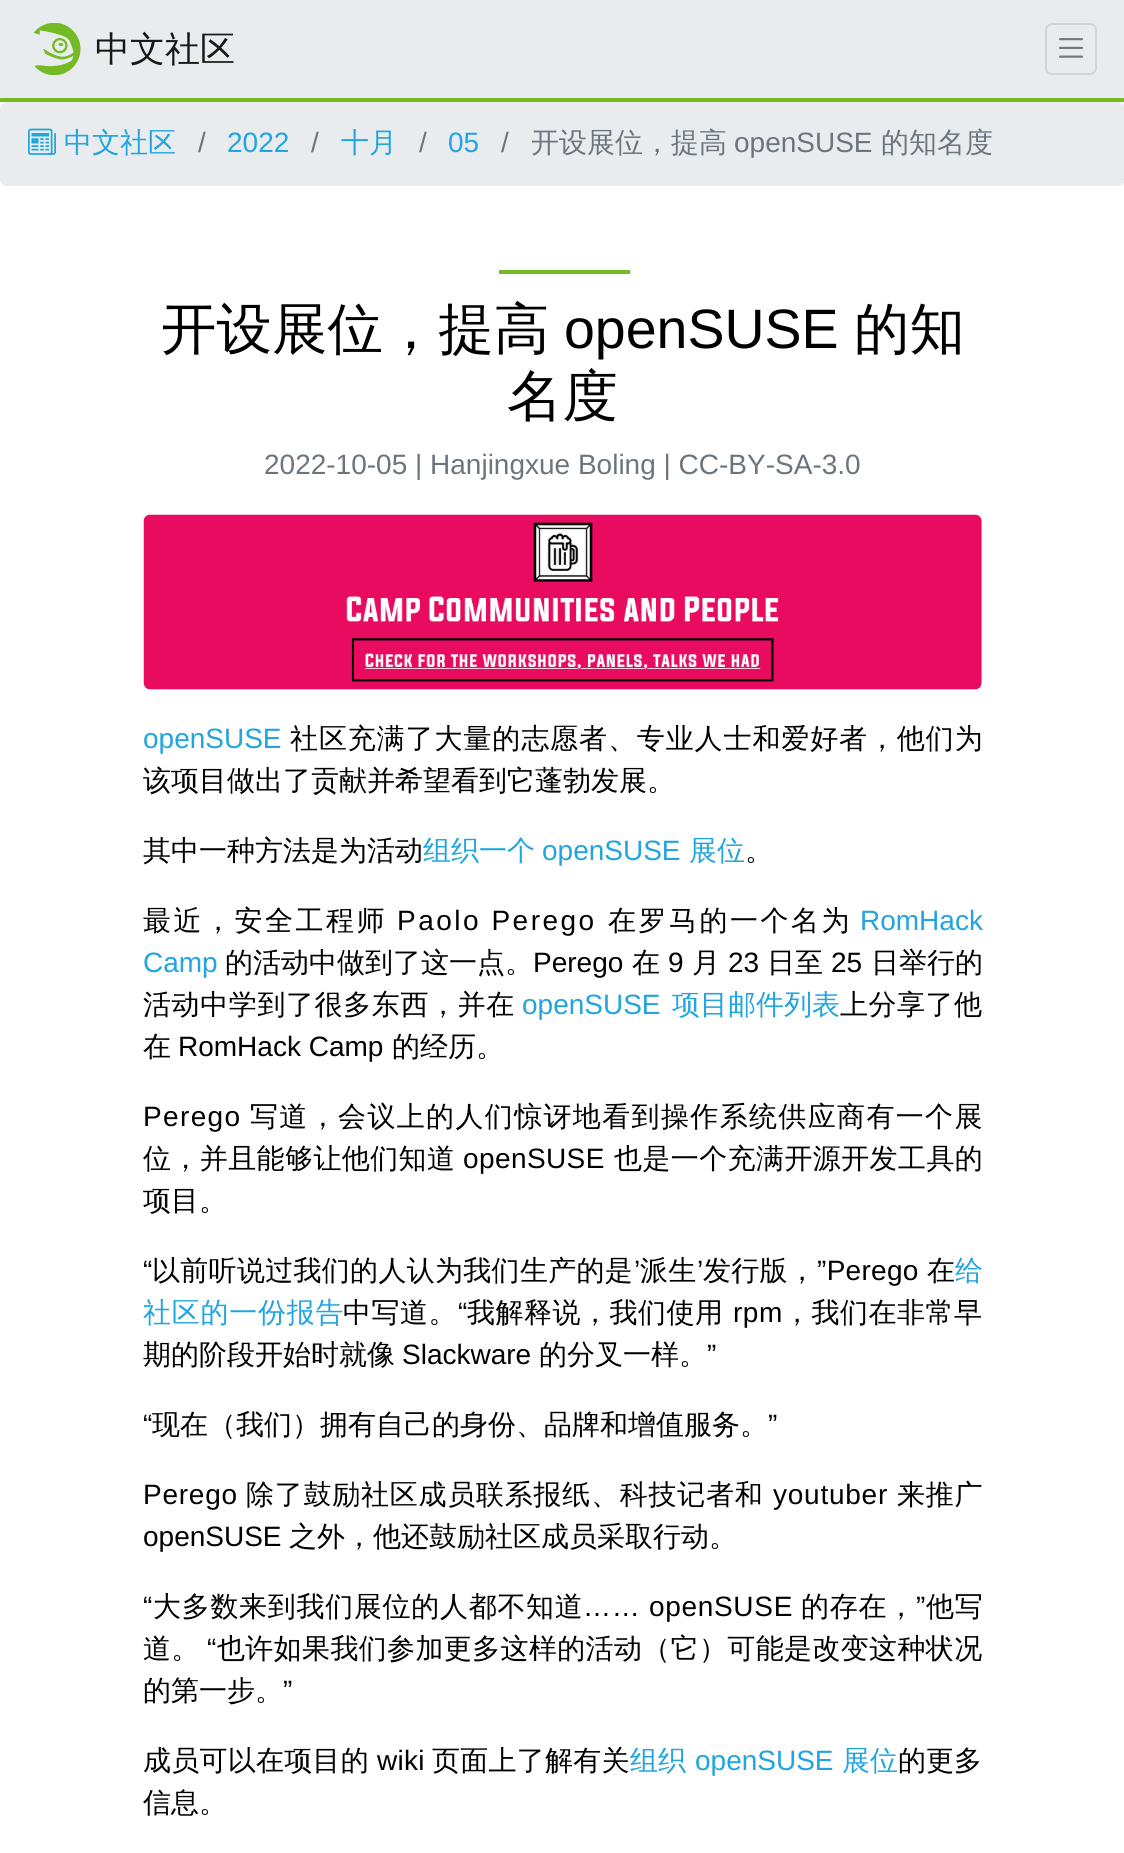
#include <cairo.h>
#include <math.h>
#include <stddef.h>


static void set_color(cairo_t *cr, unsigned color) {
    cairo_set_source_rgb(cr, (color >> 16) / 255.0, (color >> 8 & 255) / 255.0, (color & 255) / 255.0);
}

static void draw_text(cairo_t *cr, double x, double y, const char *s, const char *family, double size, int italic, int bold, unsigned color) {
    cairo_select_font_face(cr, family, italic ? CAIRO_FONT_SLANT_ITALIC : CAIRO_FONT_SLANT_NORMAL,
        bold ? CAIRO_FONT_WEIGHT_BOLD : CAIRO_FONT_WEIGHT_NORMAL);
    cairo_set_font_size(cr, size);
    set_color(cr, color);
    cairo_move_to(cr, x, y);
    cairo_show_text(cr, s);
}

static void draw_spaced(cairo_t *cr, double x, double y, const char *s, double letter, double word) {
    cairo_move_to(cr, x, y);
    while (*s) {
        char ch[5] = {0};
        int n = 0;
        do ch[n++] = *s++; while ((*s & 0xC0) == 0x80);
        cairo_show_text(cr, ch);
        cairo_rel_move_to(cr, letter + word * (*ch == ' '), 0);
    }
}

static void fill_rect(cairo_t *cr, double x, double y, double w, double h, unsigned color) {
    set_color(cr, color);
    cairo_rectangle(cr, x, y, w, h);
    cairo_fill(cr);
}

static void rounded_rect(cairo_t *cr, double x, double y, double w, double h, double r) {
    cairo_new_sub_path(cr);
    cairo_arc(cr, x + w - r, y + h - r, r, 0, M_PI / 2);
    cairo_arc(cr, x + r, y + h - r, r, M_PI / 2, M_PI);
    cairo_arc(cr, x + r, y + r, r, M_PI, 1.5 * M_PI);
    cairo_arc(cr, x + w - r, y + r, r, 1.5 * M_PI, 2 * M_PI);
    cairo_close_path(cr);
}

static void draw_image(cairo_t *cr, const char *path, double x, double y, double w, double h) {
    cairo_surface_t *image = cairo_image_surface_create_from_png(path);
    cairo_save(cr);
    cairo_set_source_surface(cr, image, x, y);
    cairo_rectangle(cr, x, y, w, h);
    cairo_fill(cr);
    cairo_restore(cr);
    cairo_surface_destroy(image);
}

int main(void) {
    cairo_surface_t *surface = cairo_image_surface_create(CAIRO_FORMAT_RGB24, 1124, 1853);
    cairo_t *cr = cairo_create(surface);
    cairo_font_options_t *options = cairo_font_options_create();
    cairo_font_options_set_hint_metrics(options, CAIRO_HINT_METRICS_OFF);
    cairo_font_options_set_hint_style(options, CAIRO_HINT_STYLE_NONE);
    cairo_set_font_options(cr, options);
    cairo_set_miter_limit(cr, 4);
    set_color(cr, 0xFFFFFF);
    cairo_paint(cr);
    fill_rect(cr, 0, 0, 1124, 98, 0xE9ECEF);
    fill_rect(cr, 0, 98, 1124, 4, 0x73BA25);
    draw_image(cr, "assets/img1.png", 33, 23, 48, 52);
    draw_text(cr, 95, 61, "中文社区", "WenQuanYi Zen Hei Medium", 35, 0, 0, 0x171818);
    rounded_rect(cr, 1046, 24, 50, 50, 6);
    set_color(cr, 0xD2D4D7);
    cairo_stroke(cr);
    draw_image(cr, "assets/img2.png", 1059, 38, 24, 20);
    set_color(cr, 0xE9ECEF);
    rounded_rect(cr, 0, 102, 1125, 84, 7);
    cairo_fill(cr);
    draw_image(cr, "assets/img3.png", 28, 128, 28, 27);
    draw_text(cr, 64, 152, "中文社区", "WenQuanYi Zen Hei Medium", 28, 0, 0, 0x21A4DF);
    draw_text(cr, 198, 152, "/", "Liberation Sans", 28, 0, 0, 0x6C757D);
    draw_text(cr, 227, 152, "2022", "Liberation Sans", 28, 0, 0, 0x21A4DF);
    draw_text(cr, 311, 152, "/", "Liberation Sans", 28, 0, 0, 0x6C757D);
    draw_text(cr, 341, 152, "十月", "WenQuanYi Zen Hei Medium", 28, 0, 0, 0x21A4DF);
    draw_text(cr, 419, 152, "/", "Liberation Sans", 28, 0, 0, 0x6C757D);
    draw_text(cr, 448, 152, "05", "Liberation Sans", 28, 0, 0, 0x21A4DF);
    draw_text(cr, 501, 152, "/", "Liberation Sans", 28, 0, 0, 0x6C757D);
    draw_text(cr, 531, 152, "开设展位，提高", "WenQuanYi Zen Hei Medium", 28, 0, 0, 0x6C757D);
    draw_text(cr, 734, 152, "openSUSE", "Liberation Sans", 28, 0, 0, 0x6C757D);
    draw_text(cr, 881, 152, "的知名度", "WenQuanYi Zen Hei Medium", 28, 0, 0, 0x6C757D);
    fill_rect(cr, 499, 270, 131, 4, 0x73BA25);
    draw_text(cr, 161, 348, "开设展位，提高", "WenQuanYi Zen Hei Medium", 55.5, 0, 0, 0x000000);
    draw_text(cr, 564, 348, "openSUSE", "Liberation Sans", 55.5, 0, 0, 0x000000);
    draw_text(cr, 854, 348, "的知", "WenQuanYi Zen Hei Medium", 55.5, 0, 0, 0x000000);
    draw_text(cr, 507, 415, "名度", "WenQuanYi Zen Hei Medium", 55.5, 0, 0, 0x000000);
    draw_text(cr, 264, 474, "2022-10-05 | Hanjingxue Boling | CC-BY-SA-3.0", "Liberation Sans", 28, 0, 0, 0x6C757D);
    draw_image(cr, "assets/img4.png", 143, 514, 839, 176);
    draw_text(cr, 143, 748, "openSUSE", "Liberation Sans", 28, 0, 0, 0x21A4DF);
    cairo_select_font_face(cr, "WenQuanYi Zen Hei Medium", CAIRO_FONT_SLANT_NORMAL, CAIRO_FONT_WEIGHT_NORMAL);
    set_color(cr, 0x000000);
    draw_spaced(cr, 290, 748, "社区充满了大量的志愿者、专业人士和爱好者，他们为", 0.9, 0);
    draw_text(cr, 143, 790, "该项目做出了贡献并希望看到它蓬勃发展。", "WenQuanYi Zen Hei Medium", 28, 0, 0, 0x000000);
    draw_text(cr, 143, 860, "其中一种方法是为活动", "WenQuanYi Zen Hei Medium", 28, 0, 0, 0x000000);
    draw_text(cr, 423, 860, "组织一个", "WenQuanYi Zen Hei Medium", 28, 0, 0, 0x21A4DF);
    draw_text(cr, 542, 860, "openSUSE", "Liberation Sans", 28, 0, 0, 0x21A4DF);
    draw_text(cr, 689, 860, "展位", "WenQuanYi Zen Hei Medium", 28, 0, 0, 0x21A4DF);
    draw_text(cr, 745, 860, "。", "WenQuanYi Zen Hei Medium", 28, 0, 0, 0x000000);
    draw_spaced(cr, 143, 930, "最近，安全工程师", 2.5, 0);
    cairo_select_font_face(cr, "Liberation Sans", CAIRO_FONT_SLANT_NORMAL, CAIRO_FONT_WEIGHT_NORMAL);
    draw_spaced(cr, 397, 930, "Paolo Perego", 2.5, 0);
    cairo_select_font_face(cr, "WenQuanYi Zen Hei Medium", CAIRO_FONT_SLANT_NORMAL, CAIRO_FONT_WEIGHT_NORMAL);
    draw_spaced(cr, 608, 930, "在罗马的一个名为", 2.5, 0);
    draw_text(cr, 860, 930, "RomHack", "Liberation Sans", 28, 0, 0, 0x21A4DF);
    draw_text(cr, 143, 972, "Camp", "Liberation Sans", 28, 0, 0, 0x21A4DF);
    draw_text(cr, 225, 972, "的活动中做到了这一点。", "WenQuanYi Zen Hei Medium", 28, 0, 0, 0x000000);
    draw_text(cr, 533, 972, "Perego", "Liberation Sans", 28, 0, 0, 0x000000);
    draw_text(cr, 632, 972, "在", "WenQuanYi Zen Hei Medium", 28, 0, 0, 0x000000);
    draw_text(cr, 668, 972, "9", "Liberation Sans", 28, 0, 0, 0x000000);
    draw_text(cr, 692, 972, "月", "WenQuanYi Zen Hei Medium", 28, 0, 0, 0x000000);
    draw_text(cr, 728, 972, "23", "Liberation Sans", 28, 0, 0, 0x000000);
    draw_text(cr, 767, 972, "日至", "WenQuanYi Zen Hei Medium", 28, 0, 0, 0x000000);
    draw_text(cr, 831, 972, "25", "Liberation Sans", 28, 0, 0, 0x000000);
    draw_text(cr, 871, 972, "日举行的", "WenQuanYi Zen Hei Medium", 28, 0, 0, 0x000000);
    draw_spaced(cr, 143, 1014, "活动中学到了很多东西，并在", 0.6, 0);
    draw_text(cr, 522, 1014, "openSUSE", "Liberation Sans", 28, 0, 0, 0x21A4DF);
    draw_text(cr, 672, 1014, "项目邮件列表", "WenQuanYi Zen Hei Medium", 28, 0, 0, 0x21A4DF);
    set_color(cr, 0x000000);
    draw_spaced(cr, 840, 1014, "上分享了他", 0.5, 0);
    draw_text(cr, 143, 1056, "在", "WenQuanYi Zen Hei Medium", 28, 0, 0, 0x000000);
    draw_text(cr, 178, 1056, "RomHack Camp", "Liberation Sans", 28, 0, 0, 0x000000);
    draw_text(cr, 392, 1056, "的经历。", "WenQuanYi Zen Hei Medium", 28, 0, 0, 0x000000);
    cairo_select_font_face(cr, "Liberation Sans", CAIRO_FONT_SLANT_NORMAL, CAIRO_FONT_WEIGHT_NORMAL);
    draw_spaced(cr, 143, 1126, "Perego", 1.35, 0);
    cairo_select_font_face(cr, "WenQuanYi Zen Hei Medium", CAIRO_FONT_SLANT_NORMAL, CAIRO_FONT_WEIGHT_NORMAL);
    draw_spaced(cr, 250, 1126, "写道，会议上的人们惊讶地看到操作系统供应商有一个展", 1.35, 0);
    draw_spaced(cr, 143, 1168, "位，并且能够让他们知道", 0.4, 0);
    cairo_select_font_face(cr, "Liberation Sans", CAIRO_FONT_SLANT_NORMAL, CAIRO_FONT_WEIGHT_NORMAL);
    draw_spaced(cr, 463, 1168, "openSUSE", 0.4, 0);
    cairo_select_font_face(cr, "WenQuanYi Zen Hei Medium", CAIRO_FONT_SLANT_NORMAL, CAIRO_FONT_WEIGHT_NORMAL);
    draw_spaced(cr, 614, 1168, "也是一个充满开源开发工具的", 0.4, 0);
    draw_text(cr, 143, 1210, "项目。", "WenQuanYi Zen Hei Medium", 28, 0, 0, 0x000000);
    cairo_select_font_face(cr, "Liberation Sans", CAIRO_FONT_SLANT_NORMAL, CAIRO_FONT_WEIGHT_NORMAL);
    draw_spaced(cr, 143, 1280, "“", 0.3, 0);
    cairo_select_font_face(cr, "WenQuanYi Zen Hei Medium", CAIRO_FONT_SLANT_NORMAL, CAIRO_FONT_WEIGHT_NORMAL);
    draw_spaced(cr, 152, 1280, "以前听说过我们的人认为我们生产的是", 0.3, 0);
    cairo_select_font_face(cr, "Liberation Sans", CAIRO_FONT_SLANT_NORMAL, CAIRO_FONT_WEIGHT_NORMAL);
    draw_spaced(cr, 634, 1280, "’", 0.3, 0);
    cairo_select_font_face(cr, "WenQuanYi Zen Hei Medium", CAIRO_FONT_SLANT_NORMAL, CAIRO_FONT_WEIGHT_NORMAL);
    draw_spaced(cr, 640, 1280, "派生", 0.3, 0);
    cairo_select_font_face(cr, "Liberation Sans", CAIRO_FONT_SLANT_NORMAL, CAIRO_FONT_WEIGHT_NORMAL);
    draw_spaced(cr, 697, 1280, "’", 0.3, 0);
    cairo_select_font_face(cr, "WenQuanYi Zen Hei Medium", CAIRO_FONT_SLANT_NORMAL, CAIRO_FONT_WEIGHT_NORMAL);
    draw_spaced(cr, 703, 1280, "发行版，", 0.3, 0);
    cairo_select_font_face(cr, "Liberation Sans", CAIRO_FONT_SLANT_NORMAL, CAIRO_FONT_WEIGHT_NORMAL);
    draw_spaced(cr, 817, 1280, "”Perego", 0.3, 0);
    cairo_select_font_face(cr, "WenQuanYi Zen Hei Medium", CAIRO_FONT_SLANT_NORMAL, CAIRO_FONT_WEIGHT_NORMAL);
    draw_spaced(cr, 927, 1280, "在", 0.3, 0);
    draw_text(cr, 955, 1280, "给", "WenQuanYi Zen Hei Medium", 28, 0, 0, 0x21A4DF);
    draw_spaced(cr, 143, 1322, "社区的一份报告", 0.75, 0);
    set_color(cr, 0x000000);
    draw_spaced(cr, 343, 1322, "中写道。", 0.5, 0);
    cairo_select_font_face(cr, "Liberation Sans", CAIRO_FONT_SLANT_NORMAL, CAIRO_FONT_WEIGHT_NORMAL);
    draw_spaced(cr, 458, 1322, "“", 0.5, 0);
    cairo_select_font_face(cr, "WenQuanYi Zen Hei Medium", CAIRO_FONT_SLANT_NORMAL, CAIRO_FONT_WEIGHT_NORMAL);
    draw_spaced(cr, 467, 1322, "我解释说，我们使用", 0.5, 0);
    cairo_select_font_face(cr, "Liberation Sans", CAIRO_FONT_SLANT_NORMAL, CAIRO_FONT_WEIGHT_NORMAL);
    draw_spaced(cr, 733, 1322, "rpm", 0.5, 0);
    cairo_select_font_face(cr, "WenQuanYi Zen Hei Medium", CAIRO_FONT_SLANT_NORMAL, CAIRO_FONT_WEIGHT_NORMAL);
    draw_spaced(cr, 783, 1322, "，我们在非常早", 0.5, 0);
    draw_text(cr, 143, 1364, "期的阶段开始时就像", "WenQuanYi Zen Hei Medium", 28, 0, 0, 0x000000);
    draw_text(cr, 402, 1364, "Slackware", "Liberation Sans", 28, 0, 0, 0x000000);
    draw_text(cr, 539, 1364, "的分叉一样。", "WenQuanYi Zen Hei Medium", 28, 0, 0, 0x000000);
    draw_text(cr, 707, 1364, "”", "Liberation Sans", 28, 0, 0, 0x000000);
    draw_text(cr, 143, 1434, "“", "Liberation Sans", 28, 0, 0, 0x000000);
    draw_text(cr, 152, 1434, "现在（我们）拥有自己的身份、品牌和增值服务。", "WenQuanYi Zen Hei Medium", 28, 0, 0, 0x000000);
    draw_text(cr, 768, 1434, "”", "Liberation Sans", 28, 0, 0, 0x000000);
    draw_spaced(cr, 143, 1504, "Perego", 0.75, 0);
    cairo_select_font_face(cr, "WenQuanYi Zen Hei Medium", CAIRO_FONT_SLANT_NORMAL, CAIRO_FONT_WEIGHT_NORMAL);
    draw_spaced(cr, 246, 1504, "除了鼓励社区成员联系报纸、科技记者和", 0.75, 0);
    cairo_select_font_face(cr, "Liberation Sans", CAIRO_FONT_SLANT_NORMAL, CAIRO_FONT_WEIGHT_NORMAL);
    draw_spaced(cr, 773, 1504, "youtuber", 0.75, 0);
    cairo_select_font_face(cr, "WenQuanYi Zen Hei Medium", CAIRO_FONT_SLANT_NORMAL, CAIRO_FONT_WEIGHT_NORMAL);
    draw_spaced(cr, 897, 1504, "来推广", 0.75, 0);
    draw_text(cr, 143, 1546, "openSUSE", "Liberation Sans", 28, 0, 0, 0x000000);
    draw_text(cr, 289, 1546, "之外，他还鼓励社区成员采取行动。", "WenQuanYi Zen Hei Medium", 28, 0, 0, 0x000000);
    cairo_select_font_face(cr, "Liberation Sans", CAIRO_FONT_SLANT_NORMAL, CAIRO_FONT_WEIGHT_NORMAL);
    draw_spaced(cr, 143, 1616, "“", 0.7, 0);
    cairo_select_font_face(cr, "WenQuanYi Zen Hei Medium", CAIRO_FONT_SLANT_NORMAL, CAIRO_FONT_WEIGHT_NORMAL);
    draw_spaced(cr, 153, 1616, "大多数来到我们展位的人都不知道", 0.7, 0);
    cairo_select_font_face(cr, "Liberation Sans", CAIRO_FONT_SLANT_NORMAL, CAIRO_FONT_WEIGHT_NORMAL);
    draw_spaced(cr, 583, 1616, "…… openSUSE", 0.7, 0);
    cairo_select_font_face(cr, "WenQuanYi Zen Hei Medium", CAIRO_FONT_SLANT_NORMAL, CAIRO_FONT_WEIGHT_NORMAL);
    draw_spaced(cr, 801, 1616, "的存在，", 0.7, 0);
    cairo_select_font_face(cr, "Liberation Sans", CAIRO_FONT_SLANT_NORMAL, CAIRO_FONT_WEIGHT_NORMAL);
    draw_spaced(cr, 916, 1616, "”", 0.7, 0);
    cairo_select_font_face(cr, "WenQuanYi Zen Hei Medium", CAIRO_FONT_SLANT_NORMAL, CAIRO_FONT_WEIGHT_NORMAL);
    draw_spaced(cr, 926, 1616, "他写", 0.7, 0);
    draw_spaced(cr, 143, 1658, "道。", 0.35, 0);
    cairo_select_font_face(cr, "Liberation Sans", CAIRO_FONT_SLANT_NORMAL, CAIRO_FONT_WEIGHT_NORMAL);
    draw_spaced(cr, 207, 1658, "“", 0.35, 0);
    cairo_select_font_face(cr, "WenQuanYi Zen Hei Medium", CAIRO_FONT_SLANT_NORMAL, CAIRO_FONT_WEIGHT_NORMAL);
    draw_spaced(cr, 217, 1658, "也许如果我们参加更多这样的活动（它）可能是改变这种状况", 0.35, 0);
    draw_text(cr, 143, 1700, "的第一步。", "WenQuanYi Zen Hei Medium", 28, 0, 0, 0x000000);
    draw_text(cr, 283, 1700, "”", "Liberation Sans", 28, 0, 0, 0x000000);
    cairo_select_font_face(cr, "WenQuanYi Zen Hei Medium", CAIRO_FONT_SLANT_NORMAL, CAIRO_FONT_WEIGHT_NORMAL);
    draw_spaced(cr, 143, 1770, "成员可以在项目的", 0.25, 0);
    cairo_select_font_face(cr, "Liberation Sans", CAIRO_FONT_SLANT_NORMAL, CAIRO_FONT_WEIGHT_NORMAL);
    draw_spaced(cr, 377, 1770, "wiki", 0.25, 0);
    cairo_select_font_face(cr, "WenQuanYi Zen Hei Medium", CAIRO_FONT_SLANT_NORMAL, CAIRO_FONT_WEIGHT_NORMAL);
    draw_spaced(cr, 432, 1770, "页面上了解有关", 0.25, 0);
    draw_text(cr, 630, 1770, "组织", "WenQuanYi Zen Hei Medium", 28, 0, 0, 0x21A4DF);
    draw_text(cr, 695, 1770, "openSUSE", "Liberation Sans", 28, 0, 0, 0x21A4DF);
    draw_text(cr, 842, 1770, "展位", "WenQuanYi Zen Hei Medium", 28, 0, 0, 0x21A4DF);
    draw_text(cr, 898, 1770, "的更多", "WenQuanYi Zen Hei Medium", 28, 0, 0, 0x000000);
    draw_text(cr, 143, 1812, "信息。", "WenQuanYi Zen Hei Medium", 28, 0, 0, 0x000000);
    cairo_surface_write_to_png(surface, "output.png");
    cairo_font_options_destroy(options);
    cairo_destroy(cr);
    cairo_surface_destroy(surface);
    return 0;
}
